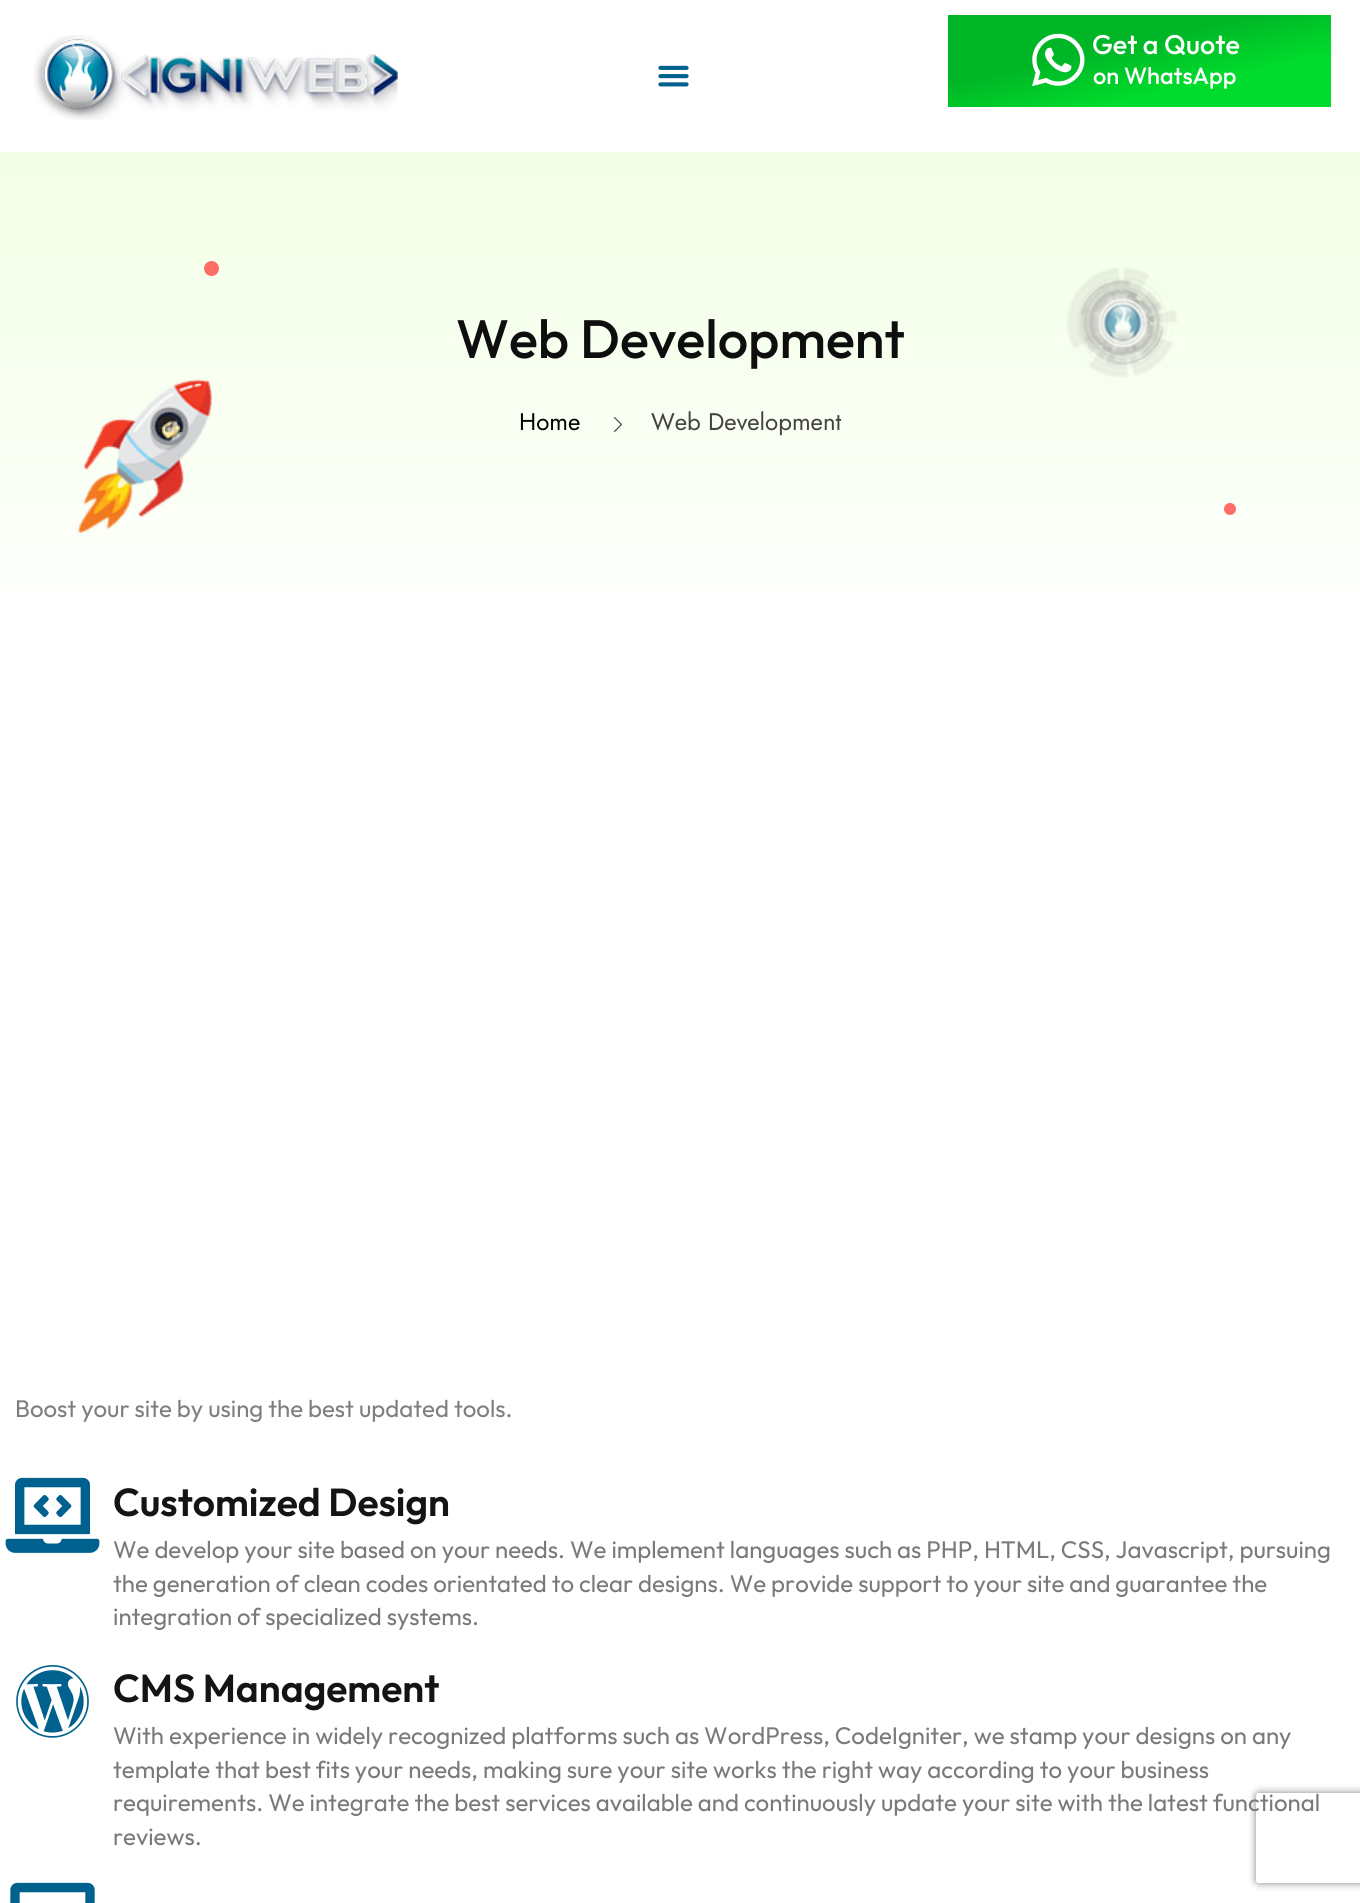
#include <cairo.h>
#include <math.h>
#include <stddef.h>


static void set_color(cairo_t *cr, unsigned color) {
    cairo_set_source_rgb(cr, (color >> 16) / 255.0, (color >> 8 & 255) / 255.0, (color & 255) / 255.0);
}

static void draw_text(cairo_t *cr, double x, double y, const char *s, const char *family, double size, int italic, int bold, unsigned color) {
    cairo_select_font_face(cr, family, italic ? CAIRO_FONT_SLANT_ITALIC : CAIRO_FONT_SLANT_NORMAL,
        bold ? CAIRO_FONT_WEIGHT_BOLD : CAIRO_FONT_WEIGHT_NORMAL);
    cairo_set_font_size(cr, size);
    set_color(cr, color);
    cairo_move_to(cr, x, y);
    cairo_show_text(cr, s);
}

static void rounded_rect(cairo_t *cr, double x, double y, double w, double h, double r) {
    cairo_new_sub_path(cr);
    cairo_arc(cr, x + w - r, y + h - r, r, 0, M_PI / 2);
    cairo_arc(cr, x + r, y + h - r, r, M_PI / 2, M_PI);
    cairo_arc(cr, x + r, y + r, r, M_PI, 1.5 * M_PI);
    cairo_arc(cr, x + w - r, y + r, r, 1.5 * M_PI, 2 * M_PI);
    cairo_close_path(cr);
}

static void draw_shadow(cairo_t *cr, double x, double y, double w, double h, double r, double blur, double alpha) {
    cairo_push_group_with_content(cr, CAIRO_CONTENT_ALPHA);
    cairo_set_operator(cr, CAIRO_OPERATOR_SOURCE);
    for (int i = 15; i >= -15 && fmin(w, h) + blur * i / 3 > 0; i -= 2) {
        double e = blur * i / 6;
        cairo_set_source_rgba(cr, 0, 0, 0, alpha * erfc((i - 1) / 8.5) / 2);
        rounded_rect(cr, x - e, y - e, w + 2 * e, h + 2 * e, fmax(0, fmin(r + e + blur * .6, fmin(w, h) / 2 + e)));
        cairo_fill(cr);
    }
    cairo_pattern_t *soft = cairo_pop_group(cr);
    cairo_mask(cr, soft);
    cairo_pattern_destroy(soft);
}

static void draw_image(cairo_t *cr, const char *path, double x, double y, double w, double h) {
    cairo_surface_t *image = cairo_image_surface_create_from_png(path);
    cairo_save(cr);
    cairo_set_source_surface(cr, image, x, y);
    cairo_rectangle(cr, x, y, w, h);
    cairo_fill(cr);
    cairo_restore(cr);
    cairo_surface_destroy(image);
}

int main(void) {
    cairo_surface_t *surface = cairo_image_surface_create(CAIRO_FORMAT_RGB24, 1360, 1903);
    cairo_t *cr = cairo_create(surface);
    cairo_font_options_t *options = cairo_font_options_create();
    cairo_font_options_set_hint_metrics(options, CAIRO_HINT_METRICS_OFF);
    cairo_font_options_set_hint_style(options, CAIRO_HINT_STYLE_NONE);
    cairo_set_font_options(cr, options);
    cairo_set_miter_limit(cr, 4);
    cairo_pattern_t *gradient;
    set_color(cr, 0xFFFFFF);
    cairo_paint(cr);
    draw_image(cr, "assets/img1.png", 34, 35, 364, 85);
    draw_image(cr, "assets/img2.png", 658, 65, 31, 22);
    gradient = cairo_pattern_create_linear(1120, -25, 1159, 146);
    cairo_pattern_add_color_stop_rgba(gradient, 0.39, 0, 0.714, 0.149, 1);
    cairo_pattern_add_color_stop_rgba(gradient, 0.71, 0, 0.863, 0.176, 1);
    cairo_set_source(cr, gradient);
    cairo_pattern_destroy(gradient);
    cairo_rectangle(cr, 948, 15, 383, 92);
    cairo_fill(cr);
    draw_image(cr, "assets/img3.png", 1032, 33, 53, 54);
    draw_text(cr, 1092, 54, "Get a Quote", "Outfit Medium", 27, 0, 0, 0xFFFFFF);
    draw_text(cr, 1093, 84, "on WhatsApp", "Outfit Medium", 23.5, 0, 0, 0xFFFFFF);
    draw_image(cr, "assets/img4.png", 0, 151, 1360, 440);
    set_color(cr, 0xFF6D66);
    cairo_arc(cr, 211.5, 268.5, 7.5, 0, 2 * M_PI);
    cairo_fill(cr);
    draw_image(cr, "assets/img5.png", 1066, 267, 112, 111);
    draw_image(cr, "assets/img6.png", 77, 379, 135, 154);
    cairo_arc(cr, 1230, 509, 6, 0, 2 * M_PI);
    cairo_fill(cr);
    draw_text(cr, 456, 358, "Web Development", "Outfit Medium", 54, 0, 0, 0x0F0E0E);
    draw_text(cr, 519, 430, "Home", "Jost", 24, 0, 0, 0x000000);
    draw_image(cr, "assets/img7.png", 614, 417, 8, 15);
    draw_text(cr, 651, 430, "Web Development", "Jost", 24, 0, 0, 0x444141);
    draw_text(cr, 15, 1417, "Boost your site by using the best updated tools.", "Outfit", 24, 0, 0, 0x817E7E);
    draw_image(cr, "assets/img8.png", 5, 1477, 95, 76);
    draw_text(cr, 113, 1516, "Customized Design", "Outfit SemiBold", 39, 0, 0, 0x121416);
    draw_text(cr, 113, 1558, "We develop your site based on your needs. We implement languages such as PHP, HTML, CSS, Javascript, pursuing", "Outfit", 24, 0, 0, 0x7A7A7A);
    draw_text(cr, 113, 1592, "the generation of clean codes orientated to clear designs. We provide support to your site and guarantee the", "Outfit", 24, 0, 0, 0x7A7A7A);
    draw_text(cr, 113, 1625, "integration of specialized systems.", "Outfit", 24, 0, 0, 0x7A7A7A);
    draw_image(cr, "assets/img9.png", 16, 1665, 73, 73);
    draw_text(cr, 113, 1702, "CMS Management", "Outfit SemiBold", 39, 0, 0, 0x121416);
    draw_text(cr, 113, 1744, "With experience in widely recognized platforms such as WordPress, CodeIgniter, we stamp your designs on any", "Outfit", 24, 0, 0, 0x7A7A7A);
    draw_text(cr, 113, 1778, "template that best fits your needs, making sure your site works the right way according to your business", "Outfit", 24, 0, 0, 0x7A7A7A);
    draw_text(cr, 113, 1811, "requirements. We integrate the best services available and continuously update your site with the latest functional", "Outfit", 24, 0, 0, 0x7A7A7A);
    draw_text(cr, 113, 1845, "reviews.", "Outfit", 24, 0, 0, 0x7A7A7A);
    draw_image(cr, "assets/img10.png", 10, 1882, 85, 21);
    cairo_save(cr);
    cairo_set_fill_rule(cr, CAIRO_FILL_RULE_EVEN_ODD);
    cairo_new_path(cr);
    cairo_move_to(cr, 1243, 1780);
    cairo_line_to(cr, 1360, 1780);
    cairo_line_to(cr, 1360, 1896);
    cairo_line_to(cr, 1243, 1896);
    cairo_close_path(cr);
    cairo_move_to(cr, 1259, 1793);
    cairo_line_to(cr, 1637, 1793);
    cairo_curve_to(cr, 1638.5, 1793, 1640, 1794.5, 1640, 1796);
    cairo_line_to(cr, 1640, 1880);
    cairo_curve_to(cr, 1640, 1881.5, 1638.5, 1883, 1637, 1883);
    cairo_line_to(cr, 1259, 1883);
    cairo_curve_to(cr, 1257.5, 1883, 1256, 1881.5, 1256, 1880);
    cairo_line_to(cr, 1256, 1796);
    cairo_curve_to(cr, 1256, 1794.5, 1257.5, 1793, 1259, 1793);
    cairo_close_path(cr);
    cairo_clip(cr);
    set_color(cr, 0x808080);
    draw_shadow(cr, 1256, 1793, 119, 90, 3, 4, 1);
    cairo_restore(cr);
    cairo_surface_write_to_png(surface, "output.png");
    cairo_font_options_destroy(options);
    cairo_destroy(cr);
    cairo_surface_destroy(surface);
    return 0;
}
